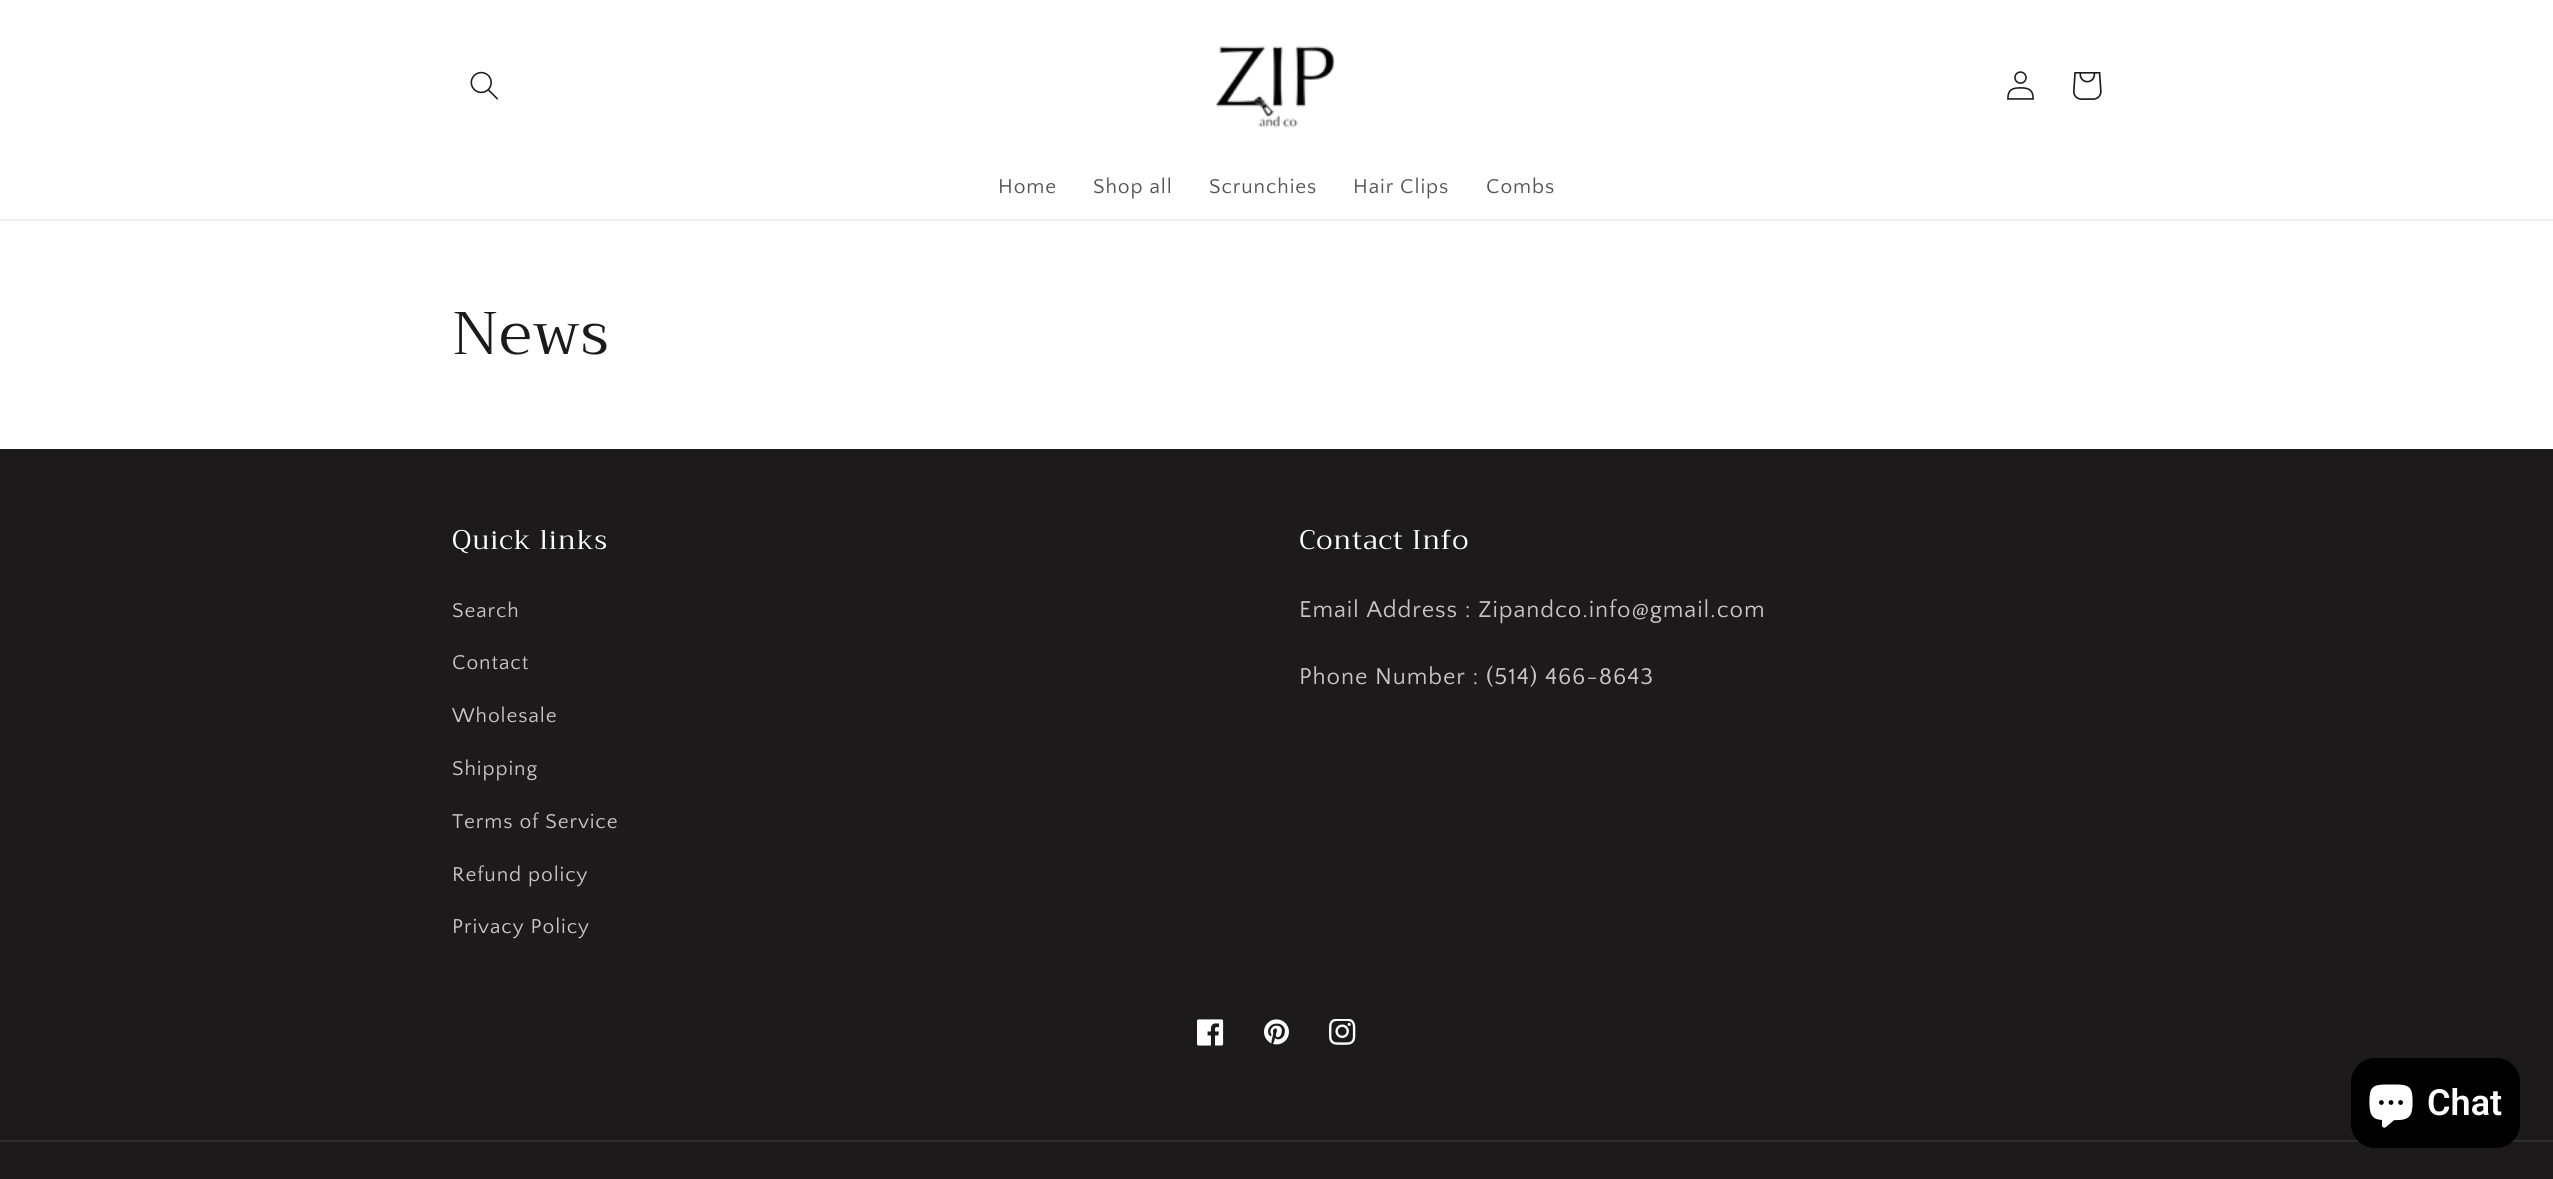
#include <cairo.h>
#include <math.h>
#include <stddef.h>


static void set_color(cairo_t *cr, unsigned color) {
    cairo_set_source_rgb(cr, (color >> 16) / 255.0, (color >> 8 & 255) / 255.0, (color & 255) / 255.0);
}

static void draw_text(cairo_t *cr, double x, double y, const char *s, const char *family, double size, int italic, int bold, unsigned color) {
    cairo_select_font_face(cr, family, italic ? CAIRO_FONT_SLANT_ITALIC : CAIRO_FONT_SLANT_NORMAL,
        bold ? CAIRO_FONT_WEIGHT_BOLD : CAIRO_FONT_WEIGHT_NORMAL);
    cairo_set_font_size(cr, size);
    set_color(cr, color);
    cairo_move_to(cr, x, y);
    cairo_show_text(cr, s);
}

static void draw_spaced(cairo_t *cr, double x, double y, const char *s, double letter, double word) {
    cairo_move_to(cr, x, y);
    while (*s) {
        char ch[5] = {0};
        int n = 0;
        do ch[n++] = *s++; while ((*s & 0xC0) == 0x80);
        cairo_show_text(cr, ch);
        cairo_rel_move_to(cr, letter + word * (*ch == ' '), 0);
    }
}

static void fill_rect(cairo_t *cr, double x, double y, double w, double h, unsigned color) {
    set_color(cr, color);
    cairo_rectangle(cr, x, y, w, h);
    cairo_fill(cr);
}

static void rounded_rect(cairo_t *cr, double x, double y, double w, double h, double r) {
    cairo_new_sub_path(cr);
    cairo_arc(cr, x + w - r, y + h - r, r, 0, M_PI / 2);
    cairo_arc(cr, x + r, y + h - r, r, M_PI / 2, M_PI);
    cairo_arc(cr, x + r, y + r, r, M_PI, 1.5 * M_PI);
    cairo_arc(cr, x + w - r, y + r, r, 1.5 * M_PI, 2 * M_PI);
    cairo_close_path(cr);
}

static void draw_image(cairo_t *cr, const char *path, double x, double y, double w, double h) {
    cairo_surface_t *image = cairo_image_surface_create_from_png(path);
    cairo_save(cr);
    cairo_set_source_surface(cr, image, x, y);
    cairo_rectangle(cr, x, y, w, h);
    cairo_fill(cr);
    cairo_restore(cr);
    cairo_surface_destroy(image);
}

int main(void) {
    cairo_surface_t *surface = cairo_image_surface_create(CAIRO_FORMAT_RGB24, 2553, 1179);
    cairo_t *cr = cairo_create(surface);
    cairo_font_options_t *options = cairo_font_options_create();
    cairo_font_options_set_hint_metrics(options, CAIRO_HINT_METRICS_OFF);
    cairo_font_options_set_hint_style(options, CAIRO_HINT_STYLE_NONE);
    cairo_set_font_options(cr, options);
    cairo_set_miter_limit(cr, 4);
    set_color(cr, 0xFFFFFF);
    cairo_paint(cr);
    fill_rect(cr, 0, 219, 2553, 2, 0xEDEDED);
    draw_image(cr, "assets/img1.png", 470, 71, 28, 29);
    draw_image(cr, "assets/img2.png", 1216, 46, 119, 82);
    draw_image(cr, "assets/img3.png", 2007, 71, 27, 29);
    draw_image(cr, "assets/img4.png", 2073, 72, 29, 28);
    cairo_select_font_face(cr, "Quattrocento Sans", CAIRO_FONT_SLANT_NORMAL, CAIRO_FONT_WEIGHT_NORMAL);
    cairo_set_font_size(cr, 21);
    set_color(cr, 0x555353);
    draw_spaced(cr, 998, 193, "Home", 0.9, 0);
    draw_spaced(cr, 1093, 193, "Shop all", 0.9, 0);
    draw_spaced(cr, 1209, 193, "Scrunchies", 0.9, 0);
    draw_spaced(cr, 1353, 193, "Hair Clips", 0.9, 0);
    draw_spaced(cr, 1486, 193, "Combs", 0.9, 0);
    cairo_select_font_face(cr, "Trirong", CAIRO_FONT_SLANT_NORMAL, CAIRO_FONT_WEIGHT_NORMAL);
    cairo_set_font_size(cr, 60);
    set_color(cr, 0x1C1A1A);
    draw_spaced(cr, 452, 354, "News", 0.9, 0);
    fill_rect(cr, 0, 449, 2553, 730, 0x1C1A1A);
    cairo_set_font_size(cr, 27);
    set_color(cr, 0xFFFFFF);
    draw_spaced(cr, 452, 549, "Quick links", 0.9, 0);
    cairo_select_font_face(cr, "Quattrocento Sans", CAIRO_FONT_SLANT_NORMAL, CAIRO_FONT_WEIGHT_NORMAL);
    cairo_set_font_size(cr, 21);
    set_color(cr, 0xC6C6C6);
    draw_spaced(cr, 452, 617, "Search", 0.9, 0);
    draw_spaced(cr, 452, 669, "Contact", 0.9, 0);
    draw_spaced(cr, 452, 722, "Wholesale", 0.9, 0);
    draw_spaced(cr, 452, 775, "Shipping", 0.9, 0);
    draw_spaced(cr, 452, 828, "Terms of Service", 0.9, 0);
    draw_spaced(cr, 452, 881, "Refund policy", 0.9, 0);
    draw_spaced(cr, 452, 933, "Privacy Policy", 0.9, 0);
    cairo_select_font_face(cr, "Trirong", CAIRO_FONT_SLANT_NORMAL, CAIRO_FONT_WEIGHT_NORMAL);
    cairo_set_font_size(cr, 27);
    set_color(cr, 0xFFFFFF);
    draw_spaced(cr, 1299, 549, "Contact Info", 0.9, 0);
    cairo_select_font_face(cr, "Quattrocento Sans", CAIRO_FONT_SLANT_NORMAL, CAIRO_FONT_WEIGHT_NORMAL);
    cairo_set_font_size(cr, 24);
    set_color(cr, 0xC6C6C6);
    draw_spaced(cr, 1299, 617, "Email Address : Zipandco.info@gmail.com", 0.9, 0);
    draw_spaced(cr, 1299, 684, "Phone Number : (514) 466-8643", 0.9, 0);
    draw_image(cr, "assets/img5.png", 1197, 1019, 27, 27);
    draw_image(cr, "assets/img6.png", 1264, 1019, 25, 26);
    draw_image(cr, "assets/img7.png", 1329, 1019, 27, 26);
    fill_rect(cr, 0, 1140, 2553, 2, 0x2E2C2C);
    set_color(cr, 0x000000);
    rounded_rect(cr, 2351, 1058, 169, 90, 24);
    cairo_fill(cr);
    draw_image(cr, "assets/img8.png", 2369, 1084, 44, 44);
    draw_text(cr, 2427, 1115, "Chat", "Roboto SemiBold", 36, 0, 0, 0xFFFFFF);
    cairo_surface_write_to_png(surface, "output.png");
    cairo_font_options_destroy(options);
    cairo_destroy(cr);
    cairo_surface_destroy(surface);
    return 0;
}
